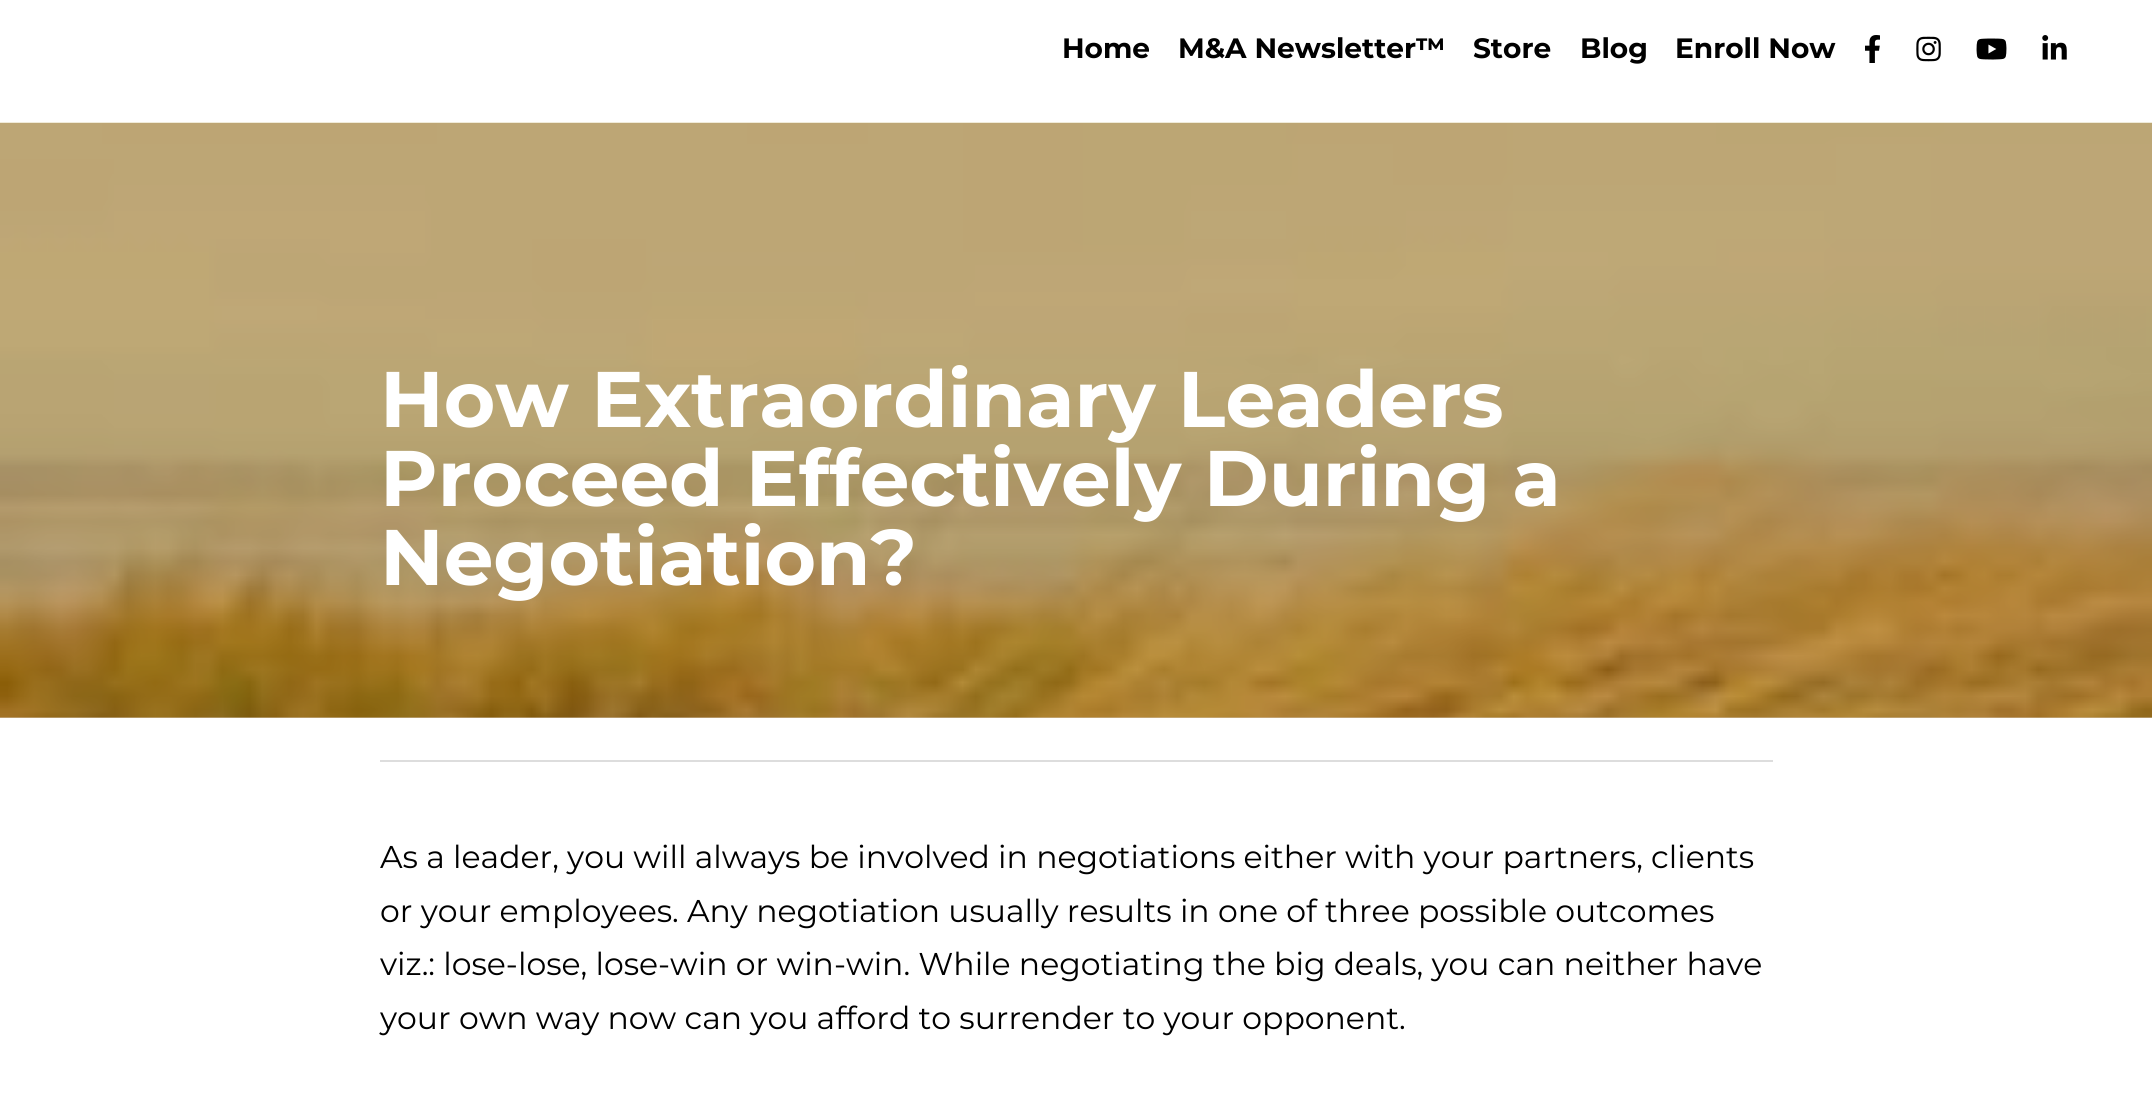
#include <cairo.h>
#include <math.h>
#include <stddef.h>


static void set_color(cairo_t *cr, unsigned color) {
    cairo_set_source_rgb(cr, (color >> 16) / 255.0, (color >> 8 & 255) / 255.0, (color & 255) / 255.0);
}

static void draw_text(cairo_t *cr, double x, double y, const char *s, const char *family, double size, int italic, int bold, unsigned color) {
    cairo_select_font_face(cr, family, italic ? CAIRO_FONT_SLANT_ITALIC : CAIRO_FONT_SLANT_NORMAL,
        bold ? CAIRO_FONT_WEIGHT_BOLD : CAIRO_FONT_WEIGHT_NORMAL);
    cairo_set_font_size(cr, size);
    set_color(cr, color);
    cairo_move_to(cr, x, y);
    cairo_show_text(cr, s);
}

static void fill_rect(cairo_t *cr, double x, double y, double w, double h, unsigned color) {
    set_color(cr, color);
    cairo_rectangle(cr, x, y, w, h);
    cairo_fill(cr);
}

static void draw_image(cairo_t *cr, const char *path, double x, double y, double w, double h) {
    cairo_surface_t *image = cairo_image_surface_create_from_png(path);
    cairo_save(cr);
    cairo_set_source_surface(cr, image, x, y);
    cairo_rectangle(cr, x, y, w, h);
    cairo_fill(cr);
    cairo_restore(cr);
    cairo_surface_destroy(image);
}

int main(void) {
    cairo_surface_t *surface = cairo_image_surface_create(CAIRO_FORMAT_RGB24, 2152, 1119);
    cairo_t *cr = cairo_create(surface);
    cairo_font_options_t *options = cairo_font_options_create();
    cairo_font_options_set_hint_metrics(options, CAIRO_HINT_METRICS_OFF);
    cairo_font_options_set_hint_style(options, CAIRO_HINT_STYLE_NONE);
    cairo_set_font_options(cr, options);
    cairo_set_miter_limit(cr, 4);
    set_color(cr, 0xFFFFFF);
    cairo_paint(cr);
    fill_rect(cr, 0, 717, 2152, 1, 0xD0BFA6);
    draw_text(cr, 1062, 58, "Home", "Montserrat", 28, 0, 1, 0x000000);
    draw_text(cr, 1178, 58, "M&A Newsletter™", "Montserrat", 28, 0, 1, 0x000000);
    draw_text(cr, 1473, 58, "Store", "Montserrat", 28, 0, 1, 0x000000);
    draw_text(cr, 1580, 58, "Blog", "Montserrat", 28, 0, 1, 0x000000);
    draw_text(cr, 1675, 58, "Enroll Now", "Montserrat", 28, 0, 1, 0x000000);
    draw_image(cr, "assets/img1.png", 1865, 35, 15, 28);
    draw_image(cr, "assets/img2.png", 1916, 36, 25, 26);
    draw_image(cr, "assets/img3.png", 1976, 38, 31, 22);
    draw_image(cr, "assets/img4.png", 2042, 35, 25, 25);
    draw_image(cr, "assets/img5.png", 0, 122, 2152, 596);
    draw_text(cr, 380, 427, "How Extraordinary Leaders", "Montserrat", 78.75, 0, 1, 0xFFFFFF);
    draw_text(cr, 380, 506, "Proceed Effectively During a", "Montserrat", 78.75, 0, 1, 0xFFFFFF);
    draw_text(cr, 380, 585, "Negotiation?", "Montserrat", 78.75, 0, 1, 0xFFFFFF);
    fill_rect(cr, 380, 760, 1393, 2, 0xDDDDDD);
    draw_text(cr, 380, 868, "As a leader, you will always be involved in negotiations either with your partners, clients", "Montserrat", 31.5, 0, 0, 0x000000);
    draw_text(cr, 380, 922, "or your employees. Any negotiation usually results in one of three possible outcomes", "Montserrat", 31.5, 0, 0, 0x000000);
    draw_text(cr, 380, 975, "viz.: lose-lose, lose-win or win-win. While negotiating the big deals, you can neither have", "Montserrat", 31.5, 0, 0, 0x000000);
    draw_text(cr, 380, 1029, "your own way now can you afford to surrender to your opponent.", "Montserrat", 31.5, 0, 0, 0x000000);
    cairo_surface_write_to_png(surface, "output.png");
    cairo_font_options_destroy(options);
    cairo_destroy(cr);
    cairo_surface_destroy(surface);
    return 0;
}
